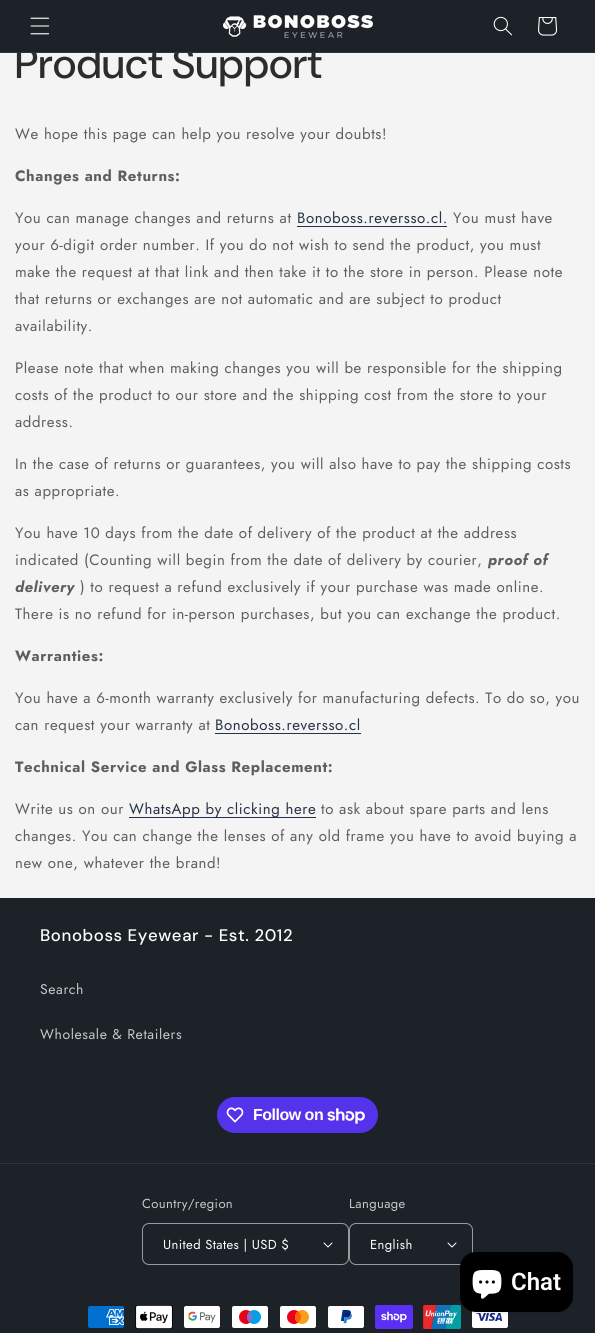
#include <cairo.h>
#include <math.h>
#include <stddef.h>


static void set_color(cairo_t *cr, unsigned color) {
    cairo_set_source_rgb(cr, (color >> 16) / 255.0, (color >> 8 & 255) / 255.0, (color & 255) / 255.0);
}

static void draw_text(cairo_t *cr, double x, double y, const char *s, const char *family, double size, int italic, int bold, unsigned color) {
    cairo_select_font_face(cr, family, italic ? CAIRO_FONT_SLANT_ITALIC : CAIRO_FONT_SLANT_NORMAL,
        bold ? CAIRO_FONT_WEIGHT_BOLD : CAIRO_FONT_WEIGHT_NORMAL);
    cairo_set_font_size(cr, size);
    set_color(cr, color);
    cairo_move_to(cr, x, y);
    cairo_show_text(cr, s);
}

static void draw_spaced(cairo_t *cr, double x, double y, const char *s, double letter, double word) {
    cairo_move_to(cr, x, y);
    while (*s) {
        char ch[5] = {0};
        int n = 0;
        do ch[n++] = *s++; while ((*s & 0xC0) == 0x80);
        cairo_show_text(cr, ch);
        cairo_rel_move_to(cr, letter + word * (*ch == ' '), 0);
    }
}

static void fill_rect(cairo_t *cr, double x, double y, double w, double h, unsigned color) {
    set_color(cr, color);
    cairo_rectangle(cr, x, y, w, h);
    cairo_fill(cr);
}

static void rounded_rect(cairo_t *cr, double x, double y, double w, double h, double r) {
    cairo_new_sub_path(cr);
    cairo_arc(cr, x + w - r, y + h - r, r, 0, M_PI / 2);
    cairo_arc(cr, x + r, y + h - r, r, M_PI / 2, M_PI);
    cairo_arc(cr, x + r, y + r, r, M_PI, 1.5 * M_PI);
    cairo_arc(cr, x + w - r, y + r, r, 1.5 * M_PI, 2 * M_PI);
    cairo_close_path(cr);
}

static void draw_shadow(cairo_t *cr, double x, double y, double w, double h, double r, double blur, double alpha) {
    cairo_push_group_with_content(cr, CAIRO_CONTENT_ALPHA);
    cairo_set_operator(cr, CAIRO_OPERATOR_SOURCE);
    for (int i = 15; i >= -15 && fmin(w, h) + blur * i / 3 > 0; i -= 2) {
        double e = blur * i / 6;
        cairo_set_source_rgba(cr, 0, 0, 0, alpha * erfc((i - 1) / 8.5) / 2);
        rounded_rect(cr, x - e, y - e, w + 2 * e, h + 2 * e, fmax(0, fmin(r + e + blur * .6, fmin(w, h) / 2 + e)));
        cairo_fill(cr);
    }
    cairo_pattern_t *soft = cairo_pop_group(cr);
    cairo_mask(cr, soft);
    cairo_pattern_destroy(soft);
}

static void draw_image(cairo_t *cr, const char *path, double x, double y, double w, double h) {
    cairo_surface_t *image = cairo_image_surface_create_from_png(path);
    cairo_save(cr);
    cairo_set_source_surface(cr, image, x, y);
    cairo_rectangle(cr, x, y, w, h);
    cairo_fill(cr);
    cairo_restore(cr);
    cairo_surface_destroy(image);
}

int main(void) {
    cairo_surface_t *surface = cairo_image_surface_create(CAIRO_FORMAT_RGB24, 595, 1333);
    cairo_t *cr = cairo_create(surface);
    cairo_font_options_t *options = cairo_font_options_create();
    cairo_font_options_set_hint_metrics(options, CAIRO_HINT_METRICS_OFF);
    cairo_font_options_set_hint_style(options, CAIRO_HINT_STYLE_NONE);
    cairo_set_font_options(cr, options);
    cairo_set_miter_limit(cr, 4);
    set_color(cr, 0xF4F4F4);
    cairo_paint(cr);
    cairo_select_font_face(cr, "DM Sans Medium", CAIRO_FONT_SLANT_NORMAL, CAIRO_FONT_WEIGHT_NORMAL);
    cairo_set_font_size(cr, 42);
    set_color(cr, 0x2B2C2D);
    draw_spaced(cr, 15, 78, "Product Support", 0.6, 0);
    fill_rect(cr, 0, 0, 595, 52, 0x1C2228);
    fill_rect(cr, 0, 52, 595, 1, 0x2E3439);
    draw_image(cr, "assets/img1.png", 30, 17, 20, 18);
    draw_image(cr, "assets/img2.png", 223, 15, 150, 23);
    draw_image(cr, "assets/img3.png", 493, 16, 19, 20);
    draw_image(cr, "assets/img4.png", 538, 17, 20, 19);
    cairo_select_font_face(cr, "Jost", CAIRO_FONT_SLANT_NORMAL, CAIRO_FONT_WEIGHT_NORMAL);
    cairo_set_font_size(cr, 15);
    set_color(cr, 0x5D5E5F);
    draw_spaced(cr, 15, 139, "We hope this page can help you resolve your doubts!", 0.6, 0);
    cairo_select_font_face(cr, "Jost", CAIRO_FONT_SLANT_NORMAL, CAIRO_FONT_WEIGHT_BOLD);
    draw_spaced(cr, 15, 181, "Changes and Returns:", 0.6, 0);
    cairo_select_font_face(cr, "Jost", CAIRO_FONT_SLANT_NORMAL, CAIRO_FONT_WEIGHT_NORMAL);
    draw_spaced(cr, 15, 223, "You can manage changes and returns at", 0.6, 0);
    set_color(cr, 0x253347);
    draw_spaced(cr, 297, 223, "Bonoboss.reversso.cl.", 0.6, 0);
    fill_rect(cr, 297, 226, 150, 1, 0x253347);
    set_color(cr, 0x5D5E5F);
    draw_spaced(cr, 453, 223, "You must have", 0.6, 0);
    draw_spaced(cr, 15, 250, "your 6-digit order number. If you do not wish to send the product, you must", 0.6, 0);
    draw_spaced(cr, 15, 277, "make the request at that link and then take it to the store in person. Please note", 0.6, 0);
    draw_spaced(cr, 15, 304, "that returns or exchanges are not automatic and are subject to product", 0.6, 0);
    draw_spaced(cr, 15, 331, "availability.", 0.6, 0);
    draw_spaced(cr, 15, 373, "Please note that when making changes you will be responsible for the shipping", 0.6, 0);
    draw_spaced(cr, 15, 400, "costs of the product to our store and the shipping cost from the store to your", 0.6, 0);
    draw_spaced(cr, 15, 427, "address.", 0.6, 0);
    draw_spaced(cr, 15, 469, "In the case of returns or guarantees, you will also have to pay the shipping costs", 0.6, 0);
    draw_spaced(cr, 15, 496, "as appropriate.", 0.6, 0);
    draw_spaced(cr, 15, 538, "You have 10 days from the date of delivery of the product at the address", 0.6, 0);
    draw_spaced(cr, 15, 565, "indicated (Counting will begin from the date of delivery by courier,", 0.6, 0);
    cairo_select_font_face(cr, "Jost", CAIRO_FONT_SLANT_ITALIC, CAIRO_FONT_WEIGHT_BOLD);
    draw_spaced(cr, 488, 565, "proof of", 0.6, 0);
    draw_spaced(cr, 15, 592, "delivery", 0.6, 0);
    cairo_select_font_face(cr, "Jost", CAIRO_FONT_SLANT_NORMAL, CAIRO_FONT_WEIGHT_NORMAL);
    draw_spaced(cr, 80, 592, ") to request a refund exclusively if your purchase was made online.", 0.6, 0);
    draw_spaced(cr, 15, 619, "There is no refund for in-person purchases, but you can exchange the product.", 0.6, 0);
    cairo_select_font_face(cr, "Jost", CAIRO_FONT_SLANT_NORMAL, CAIRO_FONT_WEIGHT_BOLD);
    draw_spaced(cr, 15, 661, "Warranties:", 0.6, 0);
    cairo_select_font_face(cr, "Jost", CAIRO_FONT_SLANT_NORMAL, CAIRO_FONT_WEIGHT_NORMAL);
    draw_spaced(cr, 15, 703, "You have a 6-month warranty exclusively for manufacturing defects. To do so, you", 0.6, 0);
    draw_spaced(cr, 15, 730, "can request your warranty at", 0.6, 0);
    set_color(cr, 0x253347);
    draw_spaced(cr, 215, 730, "Bonoboss.reversso.cl", 0.6, 0);
    fill_rect(cr, 215, 733, 146, 1, 0x253347);
    cairo_select_font_face(cr, "Jost", CAIRO_FONT_SLANT_NORMAL, CAIRO_FONT_WEIGHT_BOLD);
    set_color(cr, 0x5D5E5F);
    draw_spaced(cr, 15, 772, "Technical Service and Glass Replacement:", 0.6, 0);
    cairo_select_font_face(cr, "Jost", CAIRO_FONT_SLANT_NORMAL, CAIRO_FONT_WEIGHT_NORMAL);
    draw_spaced(cr, 15, 814, "Write us on our", 0.6, 0);
    fill_rect(cr, 129, 817, 187, 1, 0x253347);
    draw_spaced(cr, 129, 814, "WhatsApp by clicking here", 0.6, 0);
    set_color(cr, 0x5D5E5F);
    draw_spaced(cr, 321, 814, "to ask about spare parts and lens", 0.6, 0);
    draw_spaced(cr, 15, 841, "changes. You can change the lenses of any old frame you have to avoid buying a", 0.6, 0);
    draw_spaced(cr, 15, 868, "new one, whatever the brand!", 0.6, 0);
    fill_rect(cr, 0, 898, 595, 435, 0x1C2228);
    cairo_select_font_face(cr, "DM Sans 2 Medium", CAIRO_FONT_SLANT_NORMAL, CAIRO_FONT_WEIGHT_NORMAL);
    cairo_set_font_size(cr, 16.75);
    set_color(cr, 0xFFFFFF);
    draw_spaced(cr, 40, 941, "Bonoboss Eyewear - Est. 2012", 0.6, 0);
    cairo_select_font_face(cr, "Jost", CAIRO_FONT_SLANT_NORMAL, CAIRO_FONT_WEIGHT_NORMAL);
    cairo_set_font_size(cr, 14);
    set_color(cr, 0xC6C8C9);
    draw_spaced(cr, 40, 994, "Search", 0.6, 0);
    draw_spaced(cr, 40, 1039, "Wholesale & Retailers", 0.6, 0);
    set_color(cr, 0x5433EB);
    rounded_rect(cr, 217, 1097, 161, 36, 18);
    cairo_fill(cr);
    draw_image(cr, "assets/img5.png", 226, 1107, 18, 16);
    cairo_select_font_face(cr, "Liberation Sans", CAIRO_FONT_SLANT_NORMAL, CAIRO_FONT_WEIGHT_BOLD);
    cairo_set_font_size(cr, 16);
    set_color(cr, 0xFFFFFF);
    draw_spaced(cr, 253, 1120, "Follow on", -0.5, 0);
    draw_image(cr, "assets/img6.png", 327, 1108, 38, 16);
    fill_rect(cr, 0, 1163, 595, 1, 0x2E3439);
    cairo_select_font_face(cr, "Jost", CAIRO_FONT_SLANT_NORMAL, CAIRO_FONT_WEIGHT_NORMAL);
    cairo_set_font_size(cr, 13);
    set_color(cr, 0xC6C8C9);
    draw_spaced(cr, 142, 1208, "Country/region", 0.4, 0);
    draw_image(cr, "assets/img7.png", 323, 1242, 10, 6);
    rounded_rect(cr, 142.5, 1223.5, 206, 41, 6.5);
    set_color(cr, 0x999C9E);
    cairo_set_line_width(cr, 1);
    cairo_stroke(cr);
    set_color(cr, 0xFFFFFF);
    draw_spaced(cr, 163, 1249, "United States | USD $", 0.4, 0);
    set_color(cr, 0xC6C8C9);
    draw_spaced(cr, 349, 1208, "Language", 0.4, 0);
    draw_image(cr, "assets/img7.png", 447, 1242, 10, 6);
    rounded_rect(cr, 349.5, 1223.5, 123, 41, 6.5);
    set_color(cr, 0x999C9E);
    cairo_stroke(cr);
    set_color(cr, 0xFFFFFF);
    draw_spaced(cr, 370, 1249, "English", 0.4, 0);
    draw_image(cr, "assets/img8.png", 88, 1306, 36, 22);
    draw_image(cr, "assets/img9.png", 135, 1305, 38, 24);
    draw_image(cr, "assets/img10.png", 184, 1306, 36, 22);
    draw_image(cr, "assets/img11.png", 232, 1306, 36, 22);
    draw_image(cr, "assets/img12.png", 280, 1306, 36, 22);
    draw_image(cr, "assets/img13.png", 328, 1306, 36, 22);
    draw_image(cr, "assets/img14.png", 375, 1305, 38, 24);
    draw_image(cr, "assets/img15.png", 423, 1305, 38, 24);
    draw_image(cr, "assets/img16.png", 472, 1311, 36, 17);
    set_color(cr, 0x000000);
    draw_shadow(cr, 460, 1252, 113, 60, 16, 2.5, 0.15);
    set_color(cr, 0x000000);
    rounded_rect(cr, 460, 1252, 113, 60, 16);
    cairo_fill(cr);
    draw_image(cr, "assets/img17.png", 472, 1270, 30, 29);
    draw_text(cr, 511, 1290, "Chat", "Roboto SemiBold", 24, 0, 0, 0xFFFFFF);
    cairo_surface_write_to_png(surface, "output.png");
    cairo_font_options_destroy(options);
    cairo_destroy(cr);
    cairo_surface_destroy(surface);
    return 0;
}
